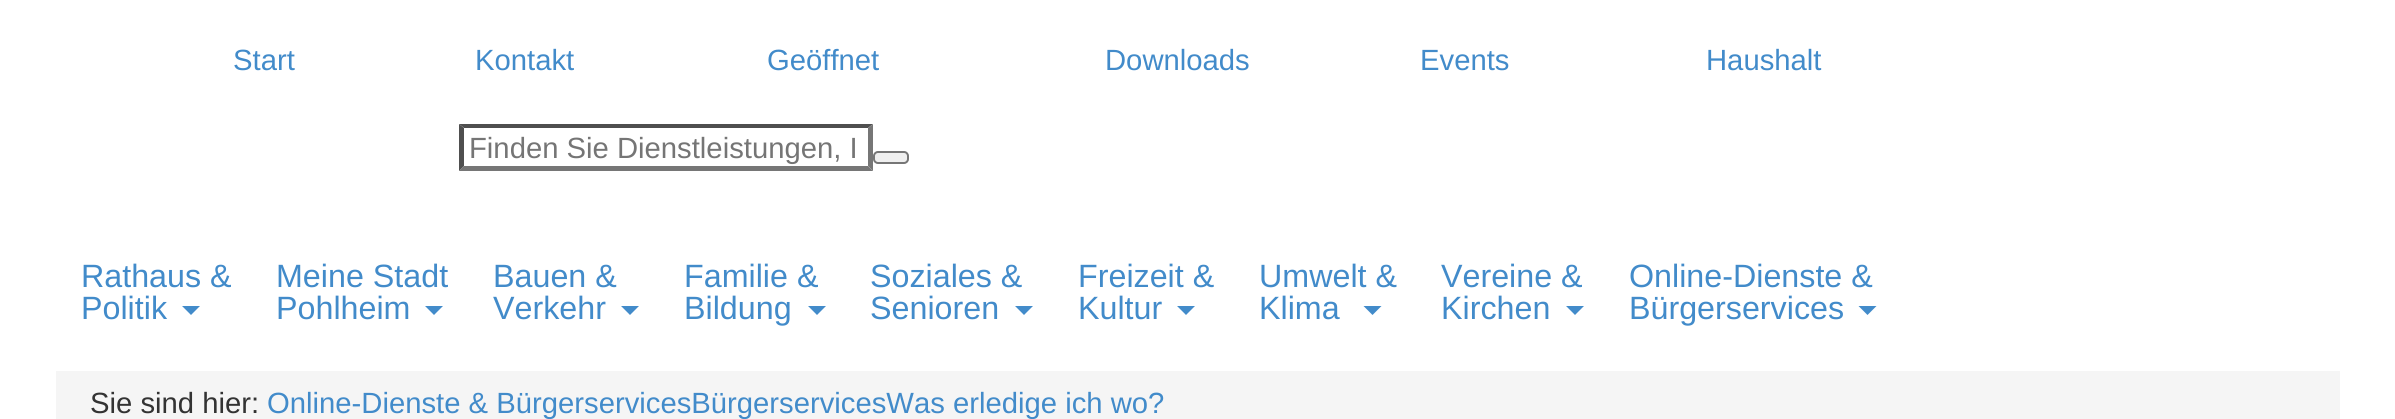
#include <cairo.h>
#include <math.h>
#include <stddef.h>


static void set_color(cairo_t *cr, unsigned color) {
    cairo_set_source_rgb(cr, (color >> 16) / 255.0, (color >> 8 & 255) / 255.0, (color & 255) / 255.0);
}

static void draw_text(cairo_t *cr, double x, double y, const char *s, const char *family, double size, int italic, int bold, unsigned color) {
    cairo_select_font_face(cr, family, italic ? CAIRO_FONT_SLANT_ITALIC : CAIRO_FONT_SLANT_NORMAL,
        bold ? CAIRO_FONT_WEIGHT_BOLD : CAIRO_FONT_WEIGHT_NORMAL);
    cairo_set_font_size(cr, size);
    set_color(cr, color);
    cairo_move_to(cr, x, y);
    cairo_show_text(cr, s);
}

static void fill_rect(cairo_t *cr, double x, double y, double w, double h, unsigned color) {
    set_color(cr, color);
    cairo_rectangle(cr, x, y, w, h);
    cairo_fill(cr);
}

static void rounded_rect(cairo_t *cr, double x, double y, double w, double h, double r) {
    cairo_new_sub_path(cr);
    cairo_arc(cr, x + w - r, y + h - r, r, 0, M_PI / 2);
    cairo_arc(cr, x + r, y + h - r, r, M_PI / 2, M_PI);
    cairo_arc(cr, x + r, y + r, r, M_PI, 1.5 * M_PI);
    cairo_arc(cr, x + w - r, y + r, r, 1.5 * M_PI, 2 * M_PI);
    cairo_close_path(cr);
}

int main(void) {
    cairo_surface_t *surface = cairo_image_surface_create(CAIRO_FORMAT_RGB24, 2395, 419);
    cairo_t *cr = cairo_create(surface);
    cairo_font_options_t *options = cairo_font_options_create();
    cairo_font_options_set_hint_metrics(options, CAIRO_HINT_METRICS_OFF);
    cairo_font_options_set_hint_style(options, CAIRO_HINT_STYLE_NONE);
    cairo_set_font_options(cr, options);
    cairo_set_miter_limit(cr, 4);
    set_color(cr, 0xFFFFFF);
    cairo_paint(cr);
    draw_text(cr, 233, 70, "Start", "Liberation Sans", 29.25, 0, 0, 0x428BCA);
    draw_text(cr, 475, 70, "Kontakt", "Liberation Sans", 29.25, 0, 0, 0x428BCA);
    draw_text(cr, 767, 70, "Geöffnet", "Liberation Sans", 29.25, 0, 0, 0x428BCA);
    draw_text(cr, 1105, 70, "Downloads", "Liberation Sans", 29.25, 0, 0, 0x428BCA);
    draw_text(cr, 1420, 70, "Events", "Liberation Sans", 29.25, 0, 0, 0x428BCA);
    draw_text(cr, 1706, 70, "Haushalt", "Liberation Sans", 29.25, 0, 0, 0x428BCA);
    set_color(cr, 0x4F4F4F);
    cairo_new_path(cr);
    cairo_move_to(cr, 459, 124);
    cairo_line_to(cr, 873, 124);
    cairo_line_to(cr, 868, 128);
    cairo_line_to(cr, 464, 128);
    cairo_close_path(cr);
    cairo_fill(cr);
    set_color(cr, 0x767676);
    cairo_new_path(cr);
    cairo_move_to(cr, 873, 124);
    cairo_line_to(cr, 873, 171);
    cairo_line_to(cr, 868, 166);
    cairo_line_to(cr, 868, 128);
    cairo_close_path(cr);
    cairo_fill(cr);
    cairo_new_path(cr);
    cairo_move_to(cr, 873, 171);
    cairo_line_to(cr, 459, 171);
    cairo_line_to(cr, 464, 166);
    cairo_line_to(cr, 868, 166);
    cairo_close_path(cr);
    cairo_fill(cr);
    set_color(cr, 0x4F4F4F);
    cairo_new_path(cr);
    cairo_move_to(cr, 459, 171);
    cairo_line_to(cr, 459, 124);
    cairo_line_to(cr, 464, 128);
    cairo_line_to(cr, 464, 166);
    cairo_close_path(cr);
    cairo_fill(cr);
    draw_text(cr, 469, 158, "Finden Sie Dienstleistungen, I", "Liberation Sans", 29.25, 0, 0, 0x757575);
    set_color(cr, 0xEFEFEF);
    rounded_rect(cr, 874, 152, 34, 11, 4);
    cairo_fill_preserve(cr);
    set_color(cr, 0x767676);
    cairo_stroke(cr);
    draw_text(cr, 81, 287, "Rathaus &", "Liberation Sans", 32.25, 0, 0, 0x428BCA);
    draw_text(cr, 81, 319, "Politik", "Liberation Sans", 32.25, 0, 0, 0x428BCA);
    cairo_new_path(cr);
    cairo_move_to(cr, 182, 306);
    cairo_line_to(cr, 200, 306);
    cairo_line_to(cr, 191, 315);
    cairo_close_path(cr);
    cairo_fill(cr);
    draw_text(cr, 276, 287, "Meine Stadt", "Liberation Sans", 32.25, 0, 0, 0x428BCA);
    draw_text(cr, 276, 319, "Pohlheim", "Liberation Sans", 32.25, 0, 0, 0x428BCA);
    cairo_new_path(cr);
    cairo_move_to(cr, 425, 306);
    cairo_line_to(cr, 443, 306);
    cairo_line_to(cr, 434, 315);
    cairo_close_path(cr);
    cairo_fill(cr);
    draw_text(cr, 493, 287, "Bauen &", "Liberation Sans", 32.25, 0, 0, 0x428BCA);
    draw_text(cr, 493, 319, "Verkehr", "Liberation Sans", 32.25, 0, 0, 0x428BCA);
    cairo_new_path(cr);
    cairo_move_to(cr, 621, 306);
    cairo_line_to(cr, 639, 306);
    cairo_line_to(cr, 630, 315);
    cairo_close_path(cr);
    cairo_fill(cr);
    draw_text(cr, 684, 287, "Familie &", "Liberation Sans", 32.25, 0, 0, 0x428BCA);
    draw_text(cr, 684, 319, "Bildung", "Liberation Sans", 32.25, 0, 0, 0x428BCA);
    cairo_new_path(cr);
    cairo_move_to(cr, 808, 306);
    cairo_line_to(cr, 826, 306);
    cairo_line_to(cr, 817, 315);
    cairo_close_path(cr);
    cairo_fill(cr);
    draw_text(cr, 870, 287, "Soziales &", "Liberation Sans", 32.25, 0, 0, 0x428BCA);
    draw_text(cr, 870, 319, "Senioren", "Liberation Sans", 32.25, 0, 0, 0x428BCA);
    cairo_new_path(cr);
    cairo_move_to(cr, 1015, 306);
    cairo_line_to(cr, 1033, 306);
    cairo_line_to(cr, 1024, 315);
    cairo_close_path(cr);
    cairo_fill(cr);
    draw_text(cr, 1078, 287, "Freizeit &", "Liberation Sans", 32.25, 0, 0, 0x428BCA);
    draw_text(cr, 1078, 319, "Kultur", "Liberation Sans", 32.25, 0, 0, 0x428BCA);
    cairo_new_path(cr);
    cairo_move_to(cr, 1177, 306);
    cairo_line_to(cr, 1195, 306);
    cairo_line_to(cr, 1186, 315);
    cairo_close_path(cr);
    cairo_fill(cr);
    draw_text(cr, 1259, 287, "Umwelt &", "Liberation Sans", 32.25, 0, 0, 0x428BCA);
    draw_text(cr, 1259, 319, "Klima", "Liberation Sans", 32.25, 0, 0, 0x428BCA);
    cairo_new_path(cr);
    cairo_move_to(cr, 1363.5, 306);
    cairo_line_to(cr, 1381.5, 306);
    cairo_line_to(cr, 1372.5, 315);
    cairo_close_path(cr);
    cairo_fill(cr);
    draw_text(cr, 1441, 287, "Vereine &", "Liberation Sans", 32.25, 0, 0, 0x428BCA);
    draw_text(cr, 1441, 319, "Kirchen", "Liberation Sans", 32.25, 0, 0, 0x428BCA);
    cairo_new_path(cr);
    cairo_move_to(cr, 1566, 306);
    cairo_line_to(cr, 1584, 306);
    cairo_line_to(cr, 1575, 315);
    cairo_close_path(cr);
    cairo_fill(cr);
    draw_text(cr, 1629, 287, "Online-Dienste &", "Liberation Sans", 32.25, 0, 0, 0x428BCA);
    draw_text(cr, 1629, 319, "Bürgerservices", "Liberation Sans", 32.25, 0, 0, 0x428BCA);
    cairo_new_path(cr);
    cairo_move_to(cr, 1858.5, 306);
    cairo_line_to(cr, 1876.5, 306);
    cairo_line_to(cr, 1867.5, 315);
    cairo_close_path(cr);
    cairo_fill(cr);
    fill_rect(cr, 56, 371, 2284, 48, 0xF5F5F5);
    draw_text(cr, 90, 413, "Sie sind hier:", "Liberation Sans", 29.25, 0, 0, 0x333333);
    draw_text(cr, 267, 413, "Online-Dienste & BürgerservicesBürgerservicesWas erledige ich wo?", "Liberation Sans", 29.25, 0, 0, 0x428BCA);
    cairo_surface_write_to_png(surface, "output.png");
    cairo_font_options_destroy(options);
    cairo_destroy(cr);
    cairo_surface_destroy(surface);
    return 0;
}
